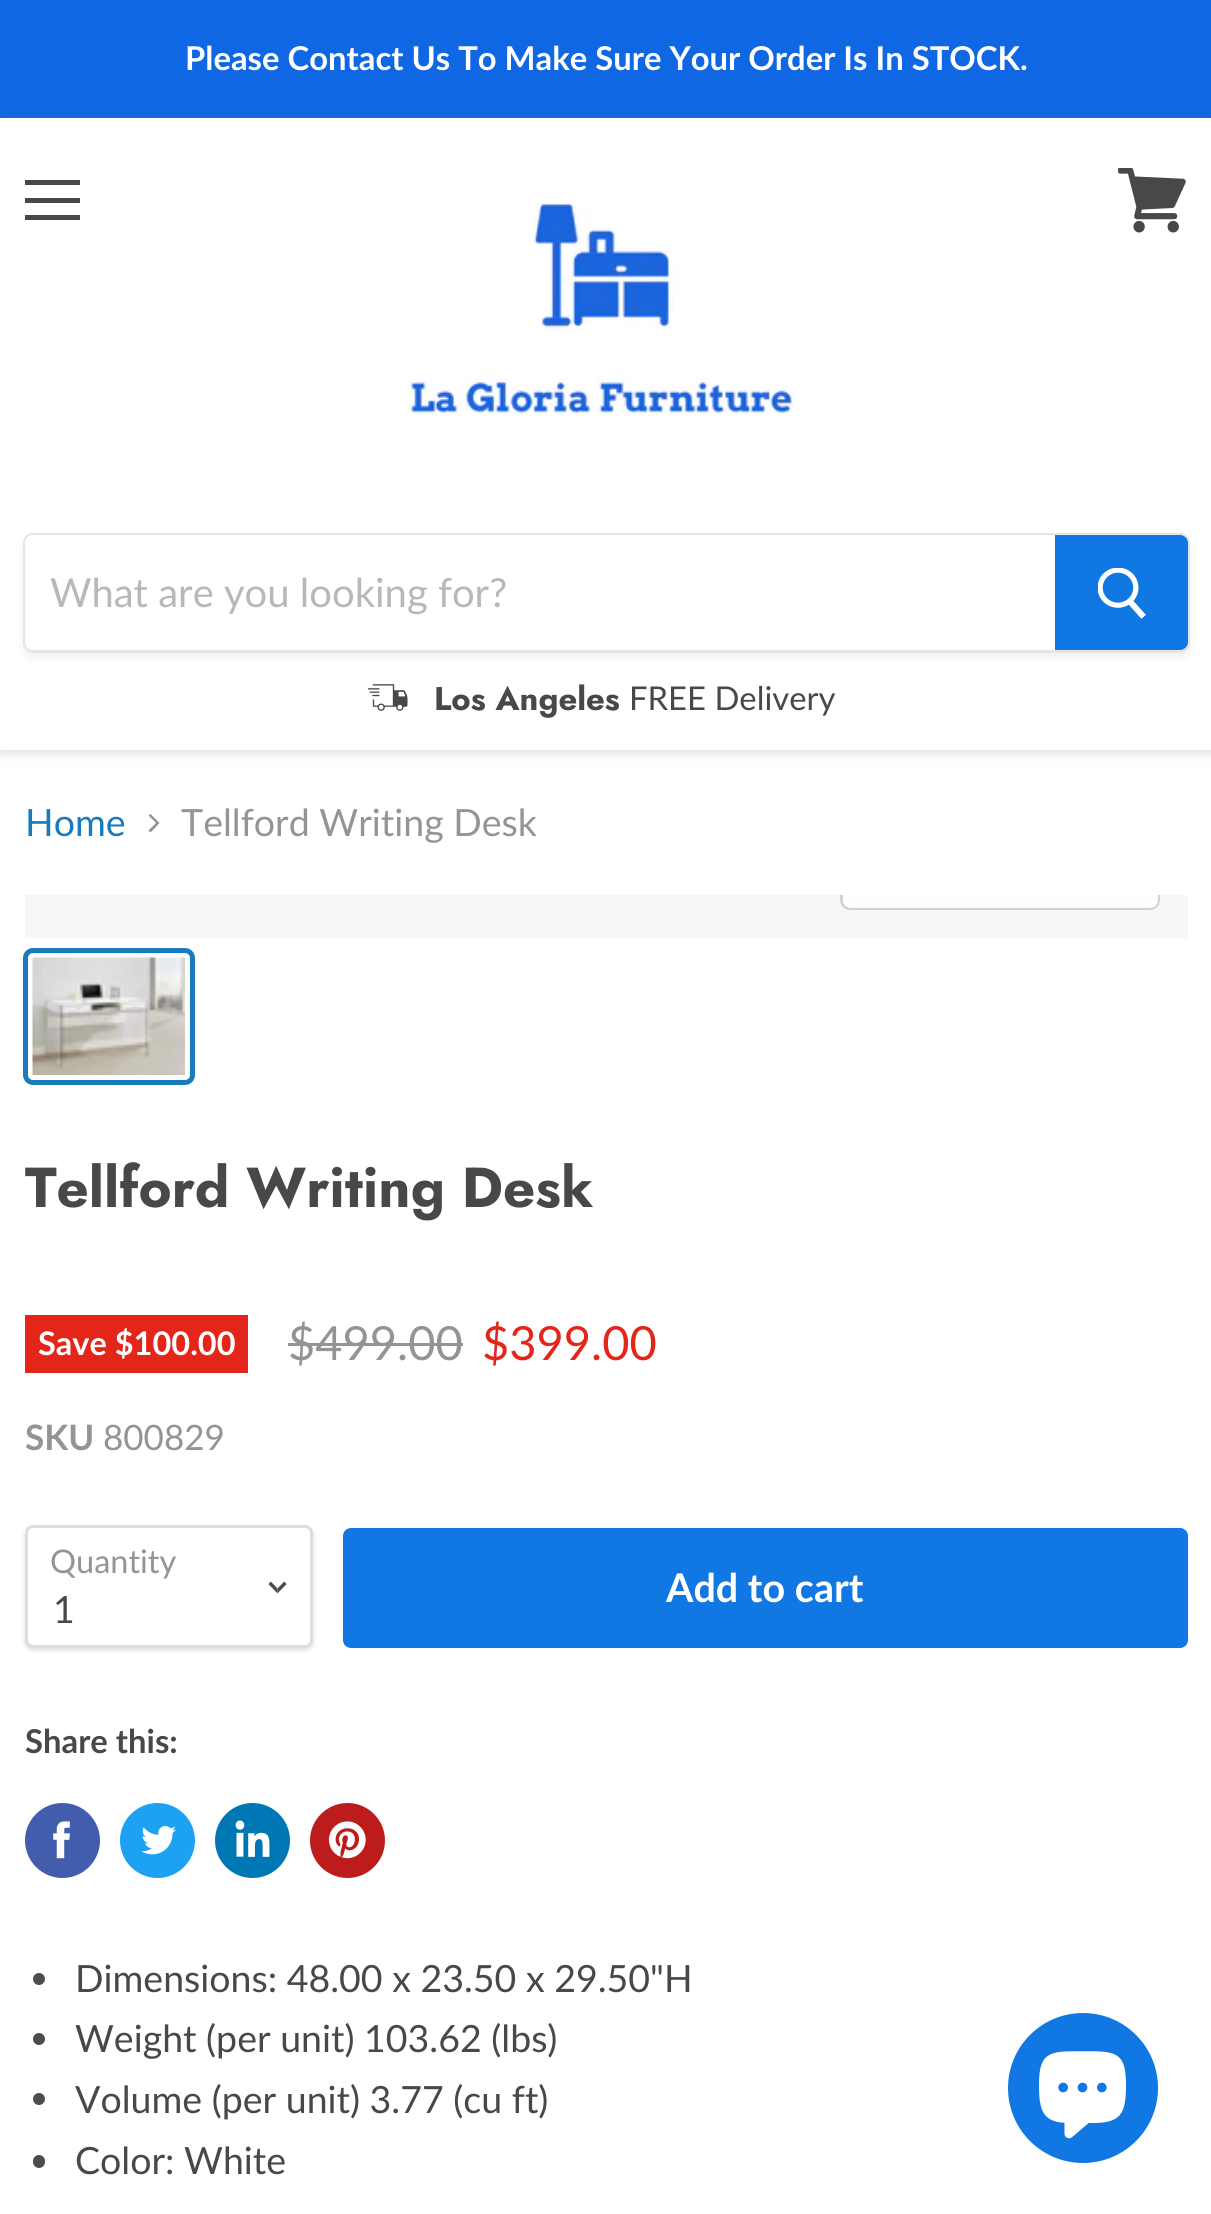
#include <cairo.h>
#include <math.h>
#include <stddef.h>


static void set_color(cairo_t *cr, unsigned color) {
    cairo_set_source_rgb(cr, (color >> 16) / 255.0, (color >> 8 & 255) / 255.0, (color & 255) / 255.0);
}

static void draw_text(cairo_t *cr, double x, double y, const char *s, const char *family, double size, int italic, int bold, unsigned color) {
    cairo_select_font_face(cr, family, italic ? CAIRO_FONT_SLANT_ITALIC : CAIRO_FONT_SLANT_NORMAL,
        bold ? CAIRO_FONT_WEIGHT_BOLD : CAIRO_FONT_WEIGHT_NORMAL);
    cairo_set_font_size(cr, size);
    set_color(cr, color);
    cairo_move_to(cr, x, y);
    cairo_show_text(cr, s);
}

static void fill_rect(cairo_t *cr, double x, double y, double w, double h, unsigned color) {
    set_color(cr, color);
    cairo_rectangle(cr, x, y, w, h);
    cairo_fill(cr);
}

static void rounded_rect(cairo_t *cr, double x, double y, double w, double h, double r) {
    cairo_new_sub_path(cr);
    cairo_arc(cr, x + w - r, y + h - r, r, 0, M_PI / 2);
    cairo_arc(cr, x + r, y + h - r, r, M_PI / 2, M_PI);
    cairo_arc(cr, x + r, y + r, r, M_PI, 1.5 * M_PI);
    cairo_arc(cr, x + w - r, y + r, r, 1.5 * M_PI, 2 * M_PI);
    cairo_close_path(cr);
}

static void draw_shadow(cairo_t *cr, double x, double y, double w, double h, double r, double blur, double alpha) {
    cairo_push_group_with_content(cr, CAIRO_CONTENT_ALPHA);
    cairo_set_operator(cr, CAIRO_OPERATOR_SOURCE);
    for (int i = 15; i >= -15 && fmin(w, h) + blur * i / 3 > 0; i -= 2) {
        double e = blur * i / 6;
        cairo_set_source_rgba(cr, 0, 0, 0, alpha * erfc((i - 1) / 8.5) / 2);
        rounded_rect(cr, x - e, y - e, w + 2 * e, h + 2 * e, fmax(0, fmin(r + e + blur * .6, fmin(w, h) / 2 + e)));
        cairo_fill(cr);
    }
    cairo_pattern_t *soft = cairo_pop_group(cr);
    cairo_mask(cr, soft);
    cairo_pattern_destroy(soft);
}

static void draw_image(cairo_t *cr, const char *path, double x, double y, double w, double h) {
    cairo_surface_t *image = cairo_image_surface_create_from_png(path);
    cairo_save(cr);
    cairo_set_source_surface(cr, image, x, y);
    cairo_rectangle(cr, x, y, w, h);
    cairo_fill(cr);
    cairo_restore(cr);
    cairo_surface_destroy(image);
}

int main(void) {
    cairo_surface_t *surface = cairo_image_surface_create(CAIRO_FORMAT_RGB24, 1211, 2214);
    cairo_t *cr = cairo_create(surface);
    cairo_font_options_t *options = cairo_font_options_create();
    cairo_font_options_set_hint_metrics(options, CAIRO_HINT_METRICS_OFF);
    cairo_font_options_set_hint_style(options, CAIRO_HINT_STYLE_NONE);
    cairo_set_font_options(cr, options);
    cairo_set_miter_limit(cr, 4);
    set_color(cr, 0xFFFFFF);
    cairo_paint(cr);
    fill_rect(cr, 0, 0, 1211, 118, 0x1067E3);
    draw_text(cr, 185, 70, "Please Contact Us To Make Sure Your Order Is In STOCK.", "Lato", 32.8, 0, 1, 0xFFFFFF);
    cairo_save(cr);
    cairo_set_fill_rule(cr, CAIRO_FILL_RULE_EVEN_ODD);
    cairo_new_path(cr);
    cairo_move_to(cr, 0, 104);
    cairo_line_to(cr, 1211, 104);
    cairo_line_to(cr, 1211, 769);
    cairo_line_to(cr, 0, 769);
    cairo_close_path(cr);
    cairo_move_to(cr, 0, 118);
    cairo_line_to(cr, 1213, 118);
    cairo_line_to(cr, 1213, 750);
    cairo_line_to(cr, 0, 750);
    cairo_close_path(cr);
    cairo_clip(cr);
    set_color(cr, 0x7F7F7F);
    draw_shadow(cr, 0, 120, 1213, 633, 0, 5, 0.25);
    cairo_restore(cr);
    fill_rect(cr, 25, 180, 55, 5, 0x484848);
    fill_rect(cr, 25, 198, 55, 5, 0x484848);
    fill_rect(cr, 25, 215, 55, 5, 0x484848);
    draw_image(cr, "assets/img1.png", 1118, 168, 68, 65);
    draw_image(cr, "assets/img2.png", 408, 197, 394, 220);
    cairo_save(cr);
    cairo_set_fill_rule(cr, CAIRO_FILL_RULE_EVEN_ODD);
    cairo_new_path(cr);
    cairo_move_to(cr, 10, 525);
    cairo_line_to(cr, 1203, 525);
    cairo_line_to(cr, 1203, 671);
    cairo_line_to(cr, 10, 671);
    cairo_close_path(cr);
    cairo_move_to(cr, 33, 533);
    cairo_line_to(cr, 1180, 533);
    cairo_curve_to(cr, 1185.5, 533, 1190, 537.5, 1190, 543);
    cairo_line_to(cr, 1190, 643);
    cairo_curve_to(cr, 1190, 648.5, 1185.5, 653, 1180, 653);
    cairo_line_to(cr, 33, 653);
    cairo_curve_to(cr, 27.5, 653, 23, 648.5, 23, 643);
    cairo_line_to(cr, 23, 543);
    cairo_curve_to(cr, 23, 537.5, 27.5, 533, 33, 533);
    cairo_close_path(cr);
    cairo_clip(cr);
    set_color(cr, 0x7F7F7F);
    draw_shadow(cr, 23, 538, 1167, 120, 10, 4, 0.11);
    cairo_restore(cr);
    rounded_rect(cr, 24.5, 534.5, 1164, 117, 8.5);
    cairo_set_source_rgba(cr, 0.498, 0.498, 0.498, 0.2);
    cairo_set_line_width(cr, 3);
    cairo_stroke(cr);
    set_color(cr, 0xFFFFFF);
    cairo_new_path(cr);
    cairo_move_to(cr, 33, 535);
    cairo_line_to(cr, 1055, 535);
    cairo_line_to(cr, 1055, 650);
    cairo_line_to(cr, 33, 650);
    cairo_curve_to(cr, 28.5, 650, 25, 646.5, 25, 642);
    cairo_line_to(cr, 25, 543);
    cairo_curve_to(cr, 25, 538.5, 28.5, 535, 33, 535);
    cairo_close_path(cr);
    cairo_fill(cr);
    draw_text(cr, 50, 607, "What are you looking for?", "Lato", 40, 0, 0, 0xB8B8B8);
    set_color(cr, 0x1077E3);
    cairo_new_path(cr);
    cairo_move_to(cr, 1056.5, 536.5);
    cairo_line_to(cr, 1180, 536.5);
    cairo_curve_to(cr, 1183.5, 536.5, 1186.5, 539.5, 1186.5, 543);
    cairo_line_to(cr, 1186.5, 642);
    cairo_curve_to(cr, 1186.5, 645.5, 1183.5, 648.5, 1180, 648.5);
    cairo_line_to(cr, 1056.5, 648.5);
    cairo_close_path(cr);
    cairo_fill_preserve(cr);
    cairo_stroke(cr);
    draw_image(cr, "assets/img3.png", 1098, 568, 48, 51);
    draw_image(cr, "assets/img4.png", 368, 684, 40, 27);
    draw_text(cr, 434, 710, "Los Angeles", "Jost", 32.8, 0, 1, 0x484848);
    draw_text(cr, 629, 710, "FREE Delivery", "Lato", 32.8, 0, 0, 0x484848);
    draw_text(cr, 25, 836, "Home", "Lato", 37.5, 0, 0, 0x197BBD);
    set_color(cr, 0x949494);
    cairo_set_fill_rule(cr, CAIRO_FILL_RULE_EVEN_ODD);
    cairo_new_path(cr);
    cairo_move_to(cr, 148.5, 830.5);
    cairo_line_to(cr, 150.5, 832.5);
    cairo_line_to(cr, 159.5, 823);
    cairo_line_to(cr, 150.5, 814);
    cairo_line_to(cr, 148.5, 815.5);
    cairo_line_to(cr, 156, 823);
    cairo_close_path(cr);
    cairo_fill(cr);
    draw_text(cr, 181, 836, "Tellford Writing Desk", "Lato", 37.5, 0, 0, 0x949494);
    fill_rect(cr, 25, 895, 1163, 43, 0xF7F7F7);
    cairo_save(cr);
    cairo_set_fill_rule(cr, CAIRO_FILL_RULE_WINDING);
    cairo_rectangle(cr, 25, 895, 1163, 43);
    cairo_clip(cr);
    rounded_rect(cr, 841.5, 839.5, 317, 69, 8.5);
    set_color(cr, 0xD2D2D2);
    cairo_stroke(cr);
    cairo_restore(cr);
    cairo_set_source_rgba(cr, 1, 1, 1, 0.9);
    cairo_new_path(cr);
    cairo_move_to(cr, 843, 895);
    cairo_line_to(cr, 1158, 895);
    cairo_line_to(cr, 1158, 900);
    cairo_curve_to(cr, 1158, 904.5, 1154.5, 908, 1150, 908);
    cairo_line_to(cr, 851, 908);
    cairo_curve_to(cr, 846.5, 908, 843, 904.5, 843, 900);
    cairo_close_path(cr);
    cairo_fill(cr);
    rounded_rect(cr, 25.5, 950.5, 167, 132, 7.5);
    set_color(cr, 0x197BBD);
    cairo_set_line_width(cr, 5);
    cairo_stroke(cr);
    draw_image(cr, "assets/img5.png", 32, 957, 153, 118);
    draw_text(cr, 25, 1207, "Tellford Writing Desk", "Jost", 56.25, 0, 1, 0x484848);
    fill_rect(cr, 25, 1315, 223, 58, 0xE32619);
    draw_text(cr, 38, 1355, "Save $100.00", "Lato", 32.5, 0, 1, 0xFFFFFF);
    draw_text(cr, 288, 1360, "$499.00", "Lato", 47, 0, 0, 0x949494);
    fill_rect(cr, 288, 1343, 175, 3, 0x949494);
    draw_text(cr, 482, 1360, "$399.00", "Lato", 47, 0, 0, 0xE32619);
    draw_text(cr, 25, 1450, "SKU", "Lato", 35, 0, 1, 0x949494);
    draw_text(cr, 103, 1450, "800829", "Lato", 35, 0, 0, 0x949494);
    set_color(cr, 0x000000);
    draw_shadow(cr, 25, 1528, 288, 122, 8, 2.5, 0.15);
    set_color(cr, 0xFFFFFF);
    rounded_rect(cr, 26.5, 1526.5, 285, 120, 6.5);
    cairo_fill_preserve(cr);
    set_color(cr, 0xDDDDDD);
    cairo_set_line_width(cr, 3);
    cairo_stroke(cr);
    draw_text(cr, 50, 1573, "Quantity", "Lato", 32.5, 0, 0, 0x949494);
    draw_image(cr, "assets/img6.png", 268, 1581, 19, 13);
    draw_text(cr, 53, 1623, "1", "Lato", 37.5, 0, 0, 0x484848);
    set_color(cr, 0x1077E3);
    rounded_rect(cr, 344.5, 1529.5, 842, 117, 6.5);
    cairo_fill_preserve(cr);
    cairo_stroke(cr);
    draw_text(cr, 666, 1602, "Add to cart", "Lato", 39.5, 0, 1, 0xFFFFFF);
    draw_text(cr, 25, 1753, "Share this:", "Lato", 32.8, 0, 1, 0x484848);
    set_color(cr, 0x425DAB);
    cairo_new_path(cr);
    cairo_arc(cr, 62.5, 1840.5, 37.5, 0, 2 * M_PI);
    cairo_fill(cr);
    draw_image(cr, "assets/img7.png", 53, 1821, 17, 38);
    set_color(cr, 0x1DA1F2);
    cairo_arc(cr, 157.5, 1840.5, 37.5, 0, 2 * M_PI);
    cairo_fill(cr);
    draw_image(cr, "assets/img8.png", 141, 1826, 35, 29);
    set_color(cr, 0x0077B5);
    cairo_arc(cr, 252.5, 1840.5, 37.5, 0, 2 * M_PI);
    cairo_fill(cr);
    draw_image(cr, "assets/img9.png", 235, 1820, 35, 37);
    set_color(cr, 0xBD1C1C);
    cairo_arc(cr, 347.5, 1840.5, 37.5, 0, 2 * M_PI);
    cairo_fill(cr);
    draw_image(cr, "assets/img10.png", 328, 1821, 38, 38);
    set_color(cr, 0x4D4D4D);
    cairo_arc(cr, 39, 1979, 6, 0, 2 * M_PI);
    cairo_fill(cr);
    draw_text(cr, 75, 1992, "Dimensions: 48.00 x 23.50 x 29.50\"H", "Lato", 37.5, 0, 0, 0x484848);
    set_color(cr, 0x4D4D4D);
    cairo_new_path(cr);
    cairo_arc(cr, 39, 2039, 6, 0, 2 * M_PI);
    cairo_fill(cr);
    draw_text(cr, 75, 2052, "Weight (per unit) 103.62 (lbs)", "Lato", 37.5, 0, 0, 0x484848);
    set_color(cr, 0x4D4D4D);
    cairo_new_path(cr);
    cairo_arc(cr, 39, 2099, 6, 0, 2 * M_PI);
    cairo_fill(cr);
    draw_text(cr, 75, 2113, "Volume (per unit) 3.77 (cu ft)", "Lato", 37.5, 0, 0, 0x484848);
    set_color(cr, 0x4D4D4D);
    rounded_rect(cr, 33, 2155, 12, 13, 6);
    cairo_fill(cr);
    draw_text(cr, 75, 2174, "Color: White", "Lato", 37.5, 0, 0, 0x484848);
    set_color(cr, 0x1077E3);
    cairo_new_path(cr);
    cairo_arc(cr, 1083, 2088, 75, 0, 2 * M_PI);
    cairo_fill(cr);
    draw_image(cr, "assets/img11.png", 1039, 2051, 87, 88);
    cairo_surface_write_to_png(surface, "output.png");
    cairo_font_options_destroy(options);
    cairo_destroy(cr);
    cairo_surface_destroy(surface);
    return 0;
}
